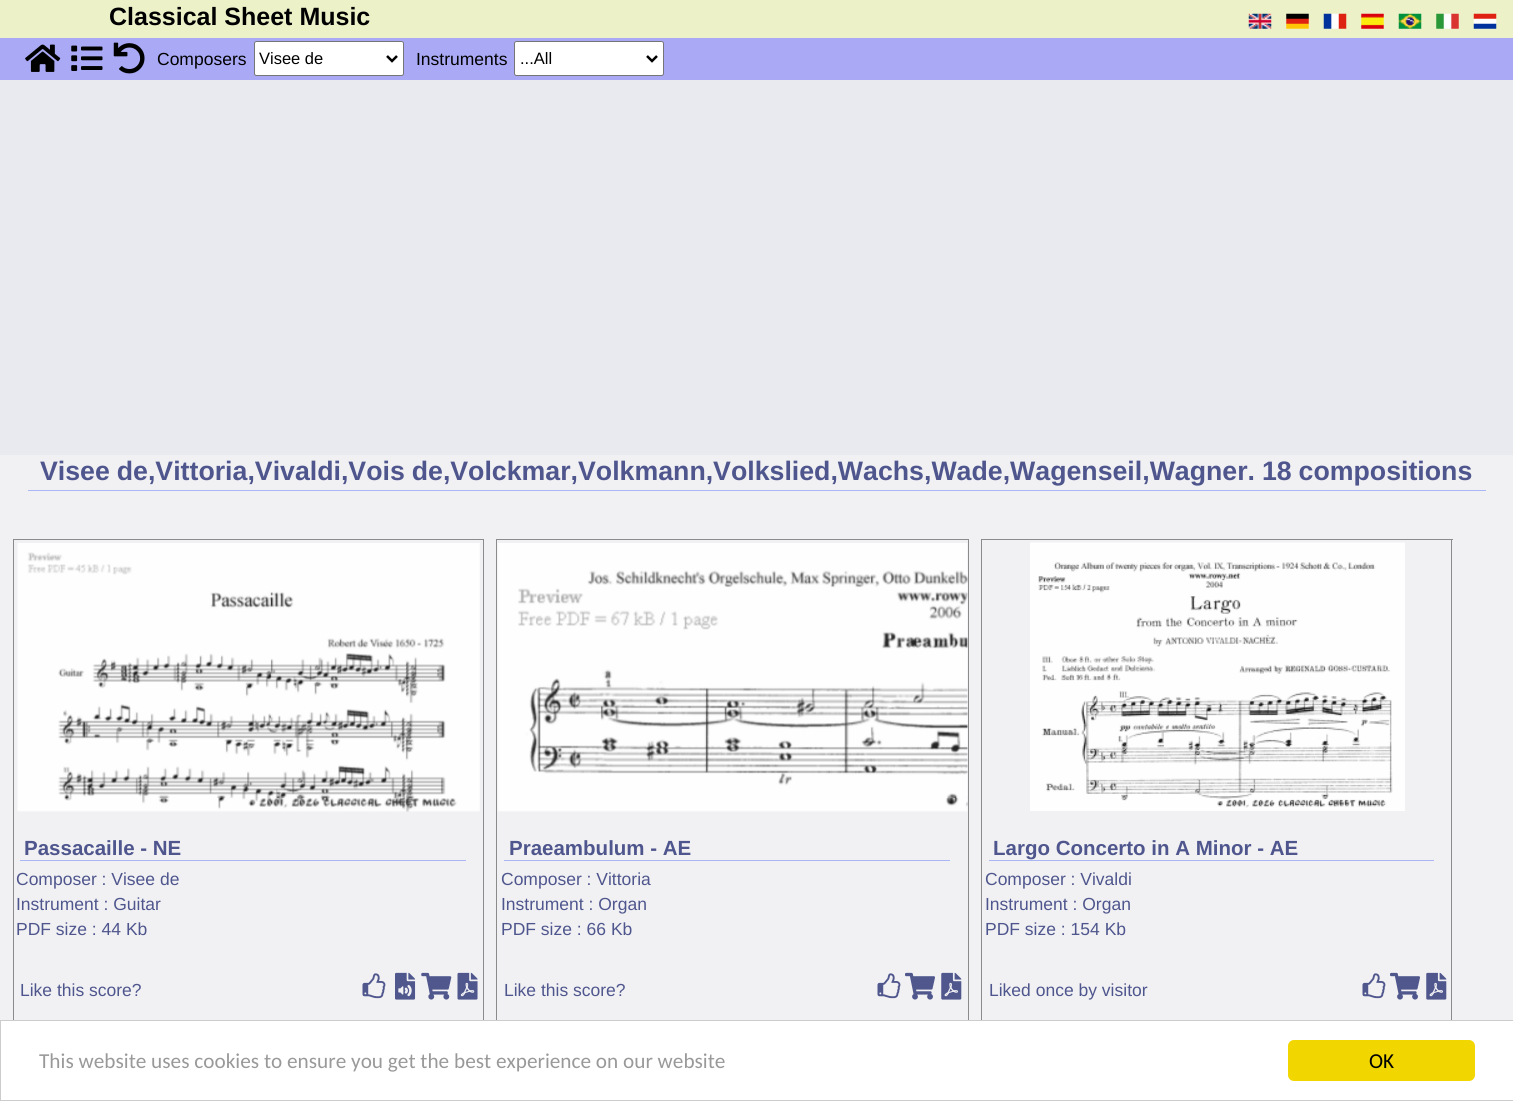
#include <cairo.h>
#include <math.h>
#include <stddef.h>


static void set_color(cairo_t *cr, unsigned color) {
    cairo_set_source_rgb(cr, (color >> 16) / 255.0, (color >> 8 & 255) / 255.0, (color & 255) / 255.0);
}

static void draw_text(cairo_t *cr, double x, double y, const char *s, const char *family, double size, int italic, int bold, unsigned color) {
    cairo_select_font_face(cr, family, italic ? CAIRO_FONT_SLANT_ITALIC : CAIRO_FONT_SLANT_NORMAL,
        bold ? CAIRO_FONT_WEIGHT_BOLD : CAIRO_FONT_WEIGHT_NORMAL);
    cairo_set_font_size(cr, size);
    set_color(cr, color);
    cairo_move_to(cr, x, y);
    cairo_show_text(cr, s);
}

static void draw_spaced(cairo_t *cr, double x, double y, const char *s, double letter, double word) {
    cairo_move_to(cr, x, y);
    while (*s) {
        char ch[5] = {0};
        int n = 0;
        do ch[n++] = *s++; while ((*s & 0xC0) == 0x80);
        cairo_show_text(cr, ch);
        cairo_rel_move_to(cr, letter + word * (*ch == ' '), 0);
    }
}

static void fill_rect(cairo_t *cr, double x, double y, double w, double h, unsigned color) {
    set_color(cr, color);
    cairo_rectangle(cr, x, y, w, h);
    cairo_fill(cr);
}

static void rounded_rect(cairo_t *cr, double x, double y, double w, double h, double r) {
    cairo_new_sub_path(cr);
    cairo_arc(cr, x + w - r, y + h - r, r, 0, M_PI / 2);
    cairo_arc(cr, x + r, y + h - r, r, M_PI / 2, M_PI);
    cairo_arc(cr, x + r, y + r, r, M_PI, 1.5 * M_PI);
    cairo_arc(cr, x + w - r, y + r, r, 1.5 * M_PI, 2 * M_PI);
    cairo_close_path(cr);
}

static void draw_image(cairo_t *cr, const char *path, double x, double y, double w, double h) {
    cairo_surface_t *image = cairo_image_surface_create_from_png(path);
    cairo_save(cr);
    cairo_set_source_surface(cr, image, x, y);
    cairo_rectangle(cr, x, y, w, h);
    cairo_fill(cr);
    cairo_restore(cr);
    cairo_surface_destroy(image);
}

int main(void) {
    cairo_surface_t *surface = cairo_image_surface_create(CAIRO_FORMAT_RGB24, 1513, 1101);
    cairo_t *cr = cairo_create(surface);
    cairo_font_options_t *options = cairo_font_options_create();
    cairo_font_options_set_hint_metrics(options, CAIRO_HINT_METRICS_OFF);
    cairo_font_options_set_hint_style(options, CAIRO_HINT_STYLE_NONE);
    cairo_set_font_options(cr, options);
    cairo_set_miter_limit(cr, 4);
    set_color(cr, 0xE9E9F0);
    cairo_paint(cr);
    fill_rect(cr, 0, 0, 1513, 38, 0xECF1C8);
    draw_text(cr, 109, 25, "Classical Sheet Music", "Liberation Sans", 25, 0, 1, 0x000000);
    draw_image(cr, "assets/img1.png", 1248, 13, 24, 16);
    draw_image(cr, "assets/img2.png", 1286, 13, 23, 16);
    draw_image(cr, "assets/img3.png", 1323, 13, 24, 16);
    draw_image(cr, "assets/img4.png", 1361, 13, 23, 16);
    draw_image(cr, "assets/img5.png", 1398, 13, 24, 16);
    draw_image(cr, "assets/img6.png", 1436, 13, 23, 16);
    draw_image(cr, "assets/img7.png", 1473, 13, 24, 16);
    fill_rect(cr, 0, 38, 1513, 42, 0xA9A9F5);
    draw_image(cr, "assets/img8.png", 25, 44, 36, 28);
    draw_image(cr, "assets/img9.png", 71, 45, 32, 26);
    draw_image(cr, "assets/img10.png", 113, 42, 32, 32);
    draw_text(cr, 157, 65, "Composers", "Liberation Sans", 17.5, 0, 0, 0x000000);
    set_color(cr, 0xFFFFFF);
    rounded_rect(cr, 254.5, 41.5, 149, 34, 2);
    cairo_fill_preserve(cr);
    set_color(cr, 0x767676);
    cairo_set_line_width(cr, 1);
    cairo_stroke(cr);
    cairo_new_path(cr);
    cairo_move_to(cr, 387, 56);
    cairo_line_to(cr, 392, 61);
    cairo_line_to(cr, 397, 56);
    set_color(cr, 0x000000);
    cairo_set_line_width(cr, 2.5);
    cairo_stroke(cr);
    draw_text(cr, 259, 64, "Visee de", "Liberation Sans", 16.5, 0, 0, 0x000000);
    draw_text(cr, 416, 65, "Instruments", "Liberation Sans", 17.5, 0, 0, 0x000000);
    set_color(cr, 0xFFFFFF);
    rounded_rect(cr, 514.5, 41.5, 149, 34, 2);
    cairo_fill_preserve(cr);
    set_color(cr, 0x767676);
    cairo_set_line_width(cr, 1);
    cairo_stroke(cr);
    cairo_new_path(cr);
    cairo_move_to(cr, 647, 56);
    cairo_line_to(cr, 652, 61);
    cairo_line_to(cr, 657, 56);
    set_color(cr, 0x000000);
    cairo_set_line_width(cr, 2.5);
    cairo_stroke(cr);
    draw_text(cr, 520, 64, "...All", "Liberation Sans", 16.5, 0, 0, 0x000000);
    fill_rect(cr, 0, 455, 1513, 565, 0xF1F1F4);
    fill_rect(cr, 28, 490, 1458, 1, 0xAAB7F7);
    cairo_select_font_face(cr, "Liberation Sans", CAIRO_FONT_SLANT_NORMAL, CAIRO_FONT_WEIGHT_BOLD);
    cairo_set_font_size(cr, 26.72);
    set_color(cr, 0x4F568D);
    draw_spaced(cr, 40, 480, "Visee de,Vittoria,Vivaldi,Vois de,Volckmar,Volkmann,Volkslied,Wachs,Wade,Wagenseil,Wagner. 18 compositions", 0, -0.5);
    fill_rect(cr, 13, 539, 471, 1, 0x8B8B8B);
    fill_rect(cr, 483, 539, 1, 484, 0x8B8B8B);
    fill_rect(cr, 13, 539, 1, 484, 0x8B8B8B);
    draw_image(cr, "assets/img11.png", 17, 543, 463, 269);
    fill_rect(cr, 20, 860, 446, 1, 0xAAB7F7);
    draw_text(cr, 24, 855, "Passacaille - NE", "Liberation Sans", 20.5, 0, 1, 0x4F568D);
    draw_text(cr, 16, 885, "Composer : Visee de", "Liberation Sans", 17.5, 0, 0, 0x4F568D);
    draw_text(cr, 16, 910, "Instrument : Guitar", "Liberation Sans", 17.5, 0, 0, 0x4F568D);
    draw_text(cr, 16, 935, "PDF size : 44 Kb", "Liberation Sans", 17.5, 0, 0, 0x4F568D);
    draw_text(cr, 20, 996, "Like this score?", "Liberation Sans", 17.5, 0, 0, 0x4F568D);
    draw_image(cr, "assets/img12.png", 362, 973, 24, 26);
    draw_image(cr, "assets/img13.png", 395, 972, 21, 28);
    draw_image(cr, "assets/img14.png", 421, 972, 31, 28);
    draw_image(cr, "assets/img15.png", 457, 972, 21, 28);
    fill_rect(cr, 496, 539, 473, 1, 0x8B8B8B);
    fill_rect(cr, 968, 539, 1, 484, 0x8B8B8B);
    fill_rect(cr, 496, 539, 1, 484, 0x8B8B8B);
    draw_image(cr, "assets/img16.png", 497, 543, 471, 269);
    fill_rect(cr, 504, 860, 446, 1, 0xAAB7F7);
    draw_text(cr, 509, 855, "Praeambulum - AE", "Liberation Sans", 20.5, 0, 1, 0x4F568D);
    draw_text(cr, 501, 885, "Composer : Vittoria", "Liberation Sans", 17.5, 0, 0, 0x4F568D);
    draw_text(cr, 501, 910, "Instrument : Organ", "Liberation Sans", 17.5, 0, 0, 0x4F568D);
    draw_text(cr, 501, 935, "PDF size : 66 Kb", "Liberation Sans", 17.5, 0, 0, 0x4F568D);
    draw_text(cr, 504, 996, "Like this score?", "Liberation Sans", 17.5, 0, 0, 0x4F568D);
    draw_image(cr, "assets/img12.png", 877, 973, 24, 26);
    draw_image(cr, "assets/img17.png", 905, 972, 30, 28);
    draw_image(cr, "assets/img18.png", 941, 972, 21, 28);
    fill_rect(cr, 981, 539, 472, 1, 0x8B8B8B);
    fill_rect(cr, 1451, 539, 1, 484, 0x8B8B8B);
    fill_rect(cr, 981, 539, 1, 484, 0x8B8B8B);
    draw_image(cr, "assets/img19.png", 1030, 542, 375, 269);
    fill_rect(cr, 989, 860, 445, 1, 0xAAB7F7);
    draw_text(cr, 993, 855, "Largo Concerto in A Minor - AE", "Liberation Sans", 20.5, 0, 1, 0x4F568D);
    draw_text(cr, 985, 885, "Composer : Vivaldi", "Liberation Sans", 17.5, 0, 0, 0x4F568D);
    draw_text(cr, 985, 910, "Instrument : Organ", "Liberation Sans", 17.5, 0, 0, 0x4F568D);
    draw_text(cr, 985, 935, "PDF size : 154 Kb", "Liberation Sans", 17.5, 0, 0, 0x4F568D);
    draw_text(cr, 989, 996, "Liked once by visitor", "Liberation Sans", 17.5, 0, 0, 0x4F568D);
    draw_image(cr, "assets/img12.png", 1362, 973, 24, 26);
    draw_image(cr, "assets/img17.png", 1390, 972, 30, 28);
    draw_image(cr, "assets/img18.png", 1426, 972, 21, 28);
    set_color(cr, 0xFFFFFF);
    cairo_rectangle(cr, 0.5, 1020.5, 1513, 80);
    cairo_fill_preserve(cr);
    set_color(cr, 0xCCCCCC);
    cairo_set_line_width(cr, 1);
    cairo_stroke(cr);
    draw_text(cr, 39, 1068, "This website uses cookies to ensure you get the best experience on our website", "Carlito", 21.25, 0, 0, 0x999999);
    set_color(cr, 0xF1D600);
    rounded_rect(cr, 1288, 1040, 187, 41, 6);
    cairo_fill(cr);
    draw_text(cr, 1369, 1068, "OK", "Carlito", 21.25, 0, 0, 0x000000);
    cairo_surface_write_to_png(surface, "output.png");
    cairo_font_options_destroy(options);
    cairo_destroy(cr);
    cairo_surface_destroy(surface);
    return 0;
}
